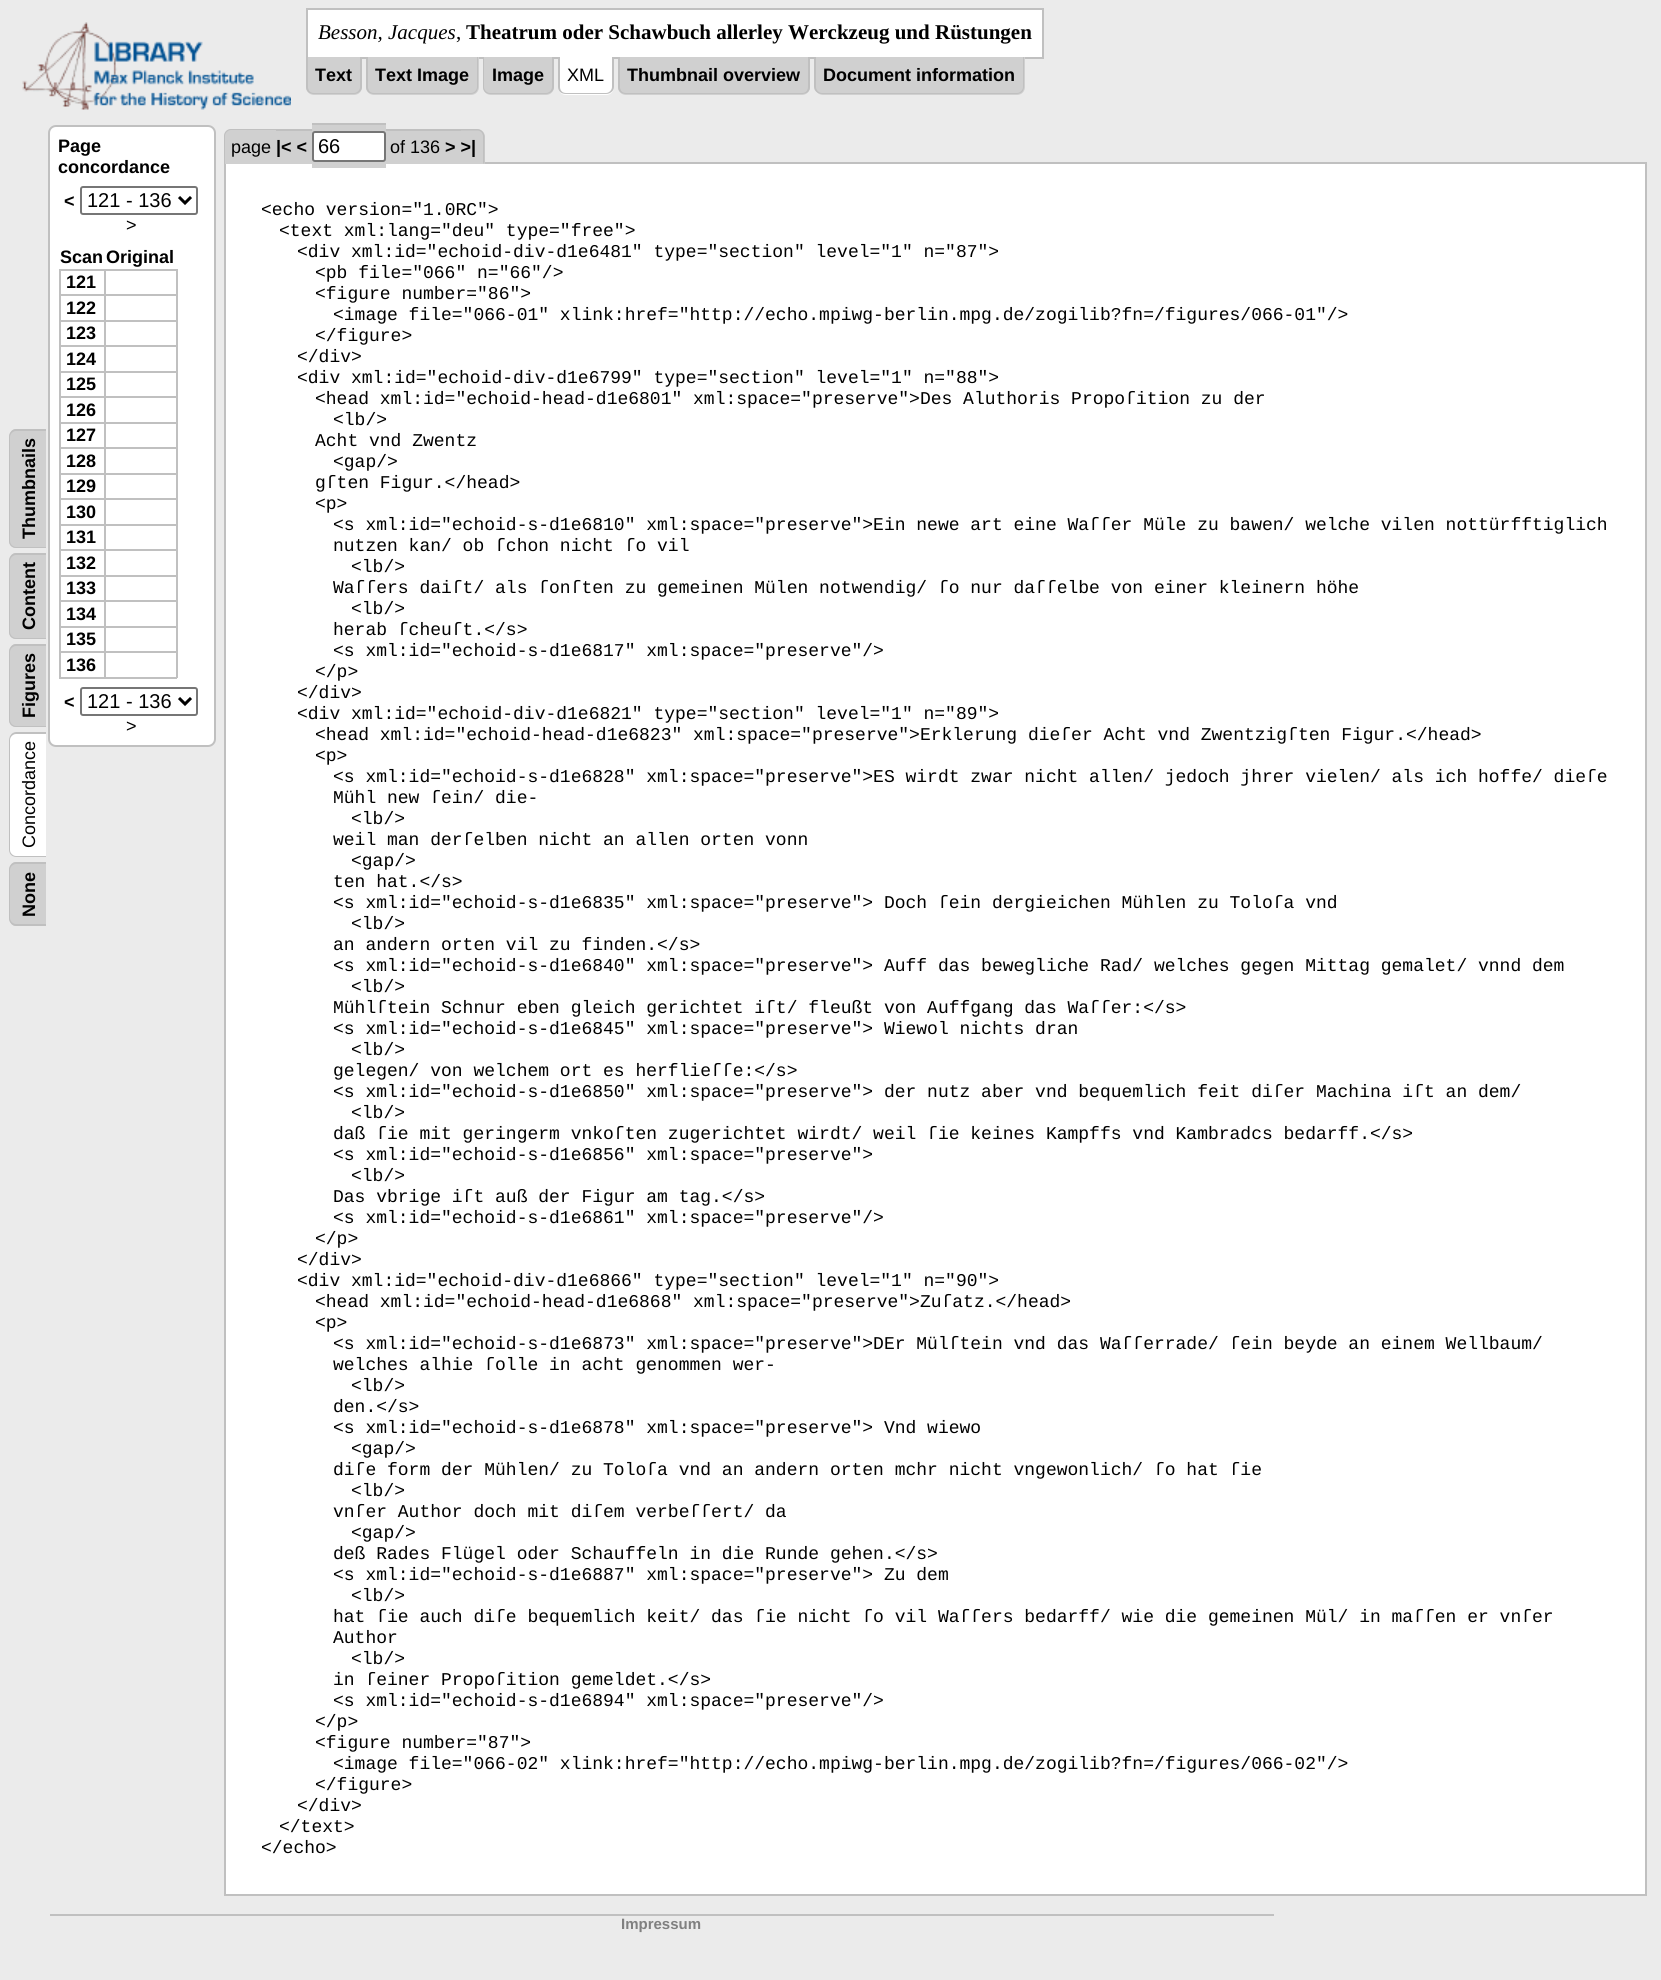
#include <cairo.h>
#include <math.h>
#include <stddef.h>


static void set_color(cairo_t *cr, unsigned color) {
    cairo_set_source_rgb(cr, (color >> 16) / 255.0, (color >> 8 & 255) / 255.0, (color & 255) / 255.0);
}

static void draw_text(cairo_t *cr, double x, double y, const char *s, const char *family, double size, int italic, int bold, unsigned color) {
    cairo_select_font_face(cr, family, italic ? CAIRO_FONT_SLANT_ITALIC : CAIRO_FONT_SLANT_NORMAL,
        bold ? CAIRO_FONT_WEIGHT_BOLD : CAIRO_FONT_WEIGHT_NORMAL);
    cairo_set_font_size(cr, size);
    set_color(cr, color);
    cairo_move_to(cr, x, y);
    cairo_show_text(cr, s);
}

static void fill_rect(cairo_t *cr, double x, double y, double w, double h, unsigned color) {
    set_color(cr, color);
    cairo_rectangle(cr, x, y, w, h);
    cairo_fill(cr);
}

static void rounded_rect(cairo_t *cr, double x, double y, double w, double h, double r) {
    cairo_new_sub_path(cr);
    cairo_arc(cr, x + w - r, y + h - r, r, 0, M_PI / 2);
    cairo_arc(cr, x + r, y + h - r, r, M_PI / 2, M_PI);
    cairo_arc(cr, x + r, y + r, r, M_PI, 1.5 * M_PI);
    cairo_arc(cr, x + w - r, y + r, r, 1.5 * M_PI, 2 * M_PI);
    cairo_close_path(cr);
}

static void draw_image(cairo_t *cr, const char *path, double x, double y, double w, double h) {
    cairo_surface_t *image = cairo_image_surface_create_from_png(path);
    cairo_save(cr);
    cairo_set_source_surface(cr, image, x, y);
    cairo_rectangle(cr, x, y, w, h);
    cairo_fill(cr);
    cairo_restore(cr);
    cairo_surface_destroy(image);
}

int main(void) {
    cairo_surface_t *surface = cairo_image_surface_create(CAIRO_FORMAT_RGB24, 1661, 1980);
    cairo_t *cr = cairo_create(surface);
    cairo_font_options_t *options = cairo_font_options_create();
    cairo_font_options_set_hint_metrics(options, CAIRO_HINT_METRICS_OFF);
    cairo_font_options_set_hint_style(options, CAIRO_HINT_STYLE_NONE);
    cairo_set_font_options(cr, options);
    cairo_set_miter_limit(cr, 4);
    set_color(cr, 0xEBEBEB);
    cairo_paint(cr);
    draw_image(cr, "assets/img1.png", 22, 22, 269, 88);
    set_color(cr, 0xFFFFFF);
    cairo_rectangle(cr, 307, 9, 736, 49);
    cairo_fill_preserve(cr);
    set_color(cr, 0xC0C0C0);
    cairo_stroke(cr);
    draw_text(cr, 318, 39, "Besson, Jacques", "Liberation Serif", 21, 1, 0, 0x000000);
    draw_text(cr, 456, 39, ",", "Liberation Serif", 21, 0, 0, 0x000000);
    draw_text(cr, 466, 39, "Theatrum oder Schawbuch allerley Werckzeug und Rüstungen", "Liberation Serif", 21, 0, 1, 0x000000);
    set_color(cr, 0xD0D0D0);
    cairo_new_path(cr);
    cairo_move_to(cr, 306, 57);
    cairo_line_to(cr, 362, 57);
    cairo_line_to(cr, 362, 87);
    cairo_curve_to(cr, 362, 91.5, 358.5, 95, 354, 95);
    cairo_line_to(cr, 314, 95);
    cairo_curve_to(cr, 309.5, 95, 306, 91.5, 306, 87);
    cairo_close_path(cr);
    cairo_fill(cr);
    set_color(cr, 0xC0C0C0);
    cairo_set_fill_rule(cr, CAIRO_FILL_RULE_EVEN_ODD);
    cairo_new_path(cr);
    cairo_move_to(cr, 306, 57);
    cairo_line_to(cr, 362, 57);
    cairo_line_to(cr, 362, 87);
    cairo_curve_to(cr, 362, 91, 358, 94, 354, 94);
    cairo_line_to(cr, 314, 94);
    cairo_curve_to(cr, 309, 94, 306, 91, 306, 87);
    cairo_close_path(cr);
    cairo_move_to(cr, 308, 57);
    cairo_line_to(cr, 360, 57);
    cairo_line_to(cr, 360, 87);
    cairo_curve_to(cr, 360, 90, 357, 93, 354, 93);
    cairo_line_to(cr, 314, 93);
    cairo_curve_to(cr, 310, 93, 308, 90, 308, 87);
    cairo_close_path(cr);
    cairo_fill(cr);
    draw_text(cr, 315, 81, "Text", "Liberation Sans", 18, 0, 1, 0x000000);
    set_color(cr, 0xD0D0D0);
    cairo_new_path(cr);
    cairo_move_to(cr, 366, 57);
    cairo_line_to(cr, 479, 57);
    cairo_line_to(cr, 479, 87);
    cairo_curve_to(cr, 479, 91.5, 475.5, 95, 471, 95);
    cairo_line_to(cr, 374, 95);
    cairo_curve_to(cr, 369.5, 95, 366, 91.5, 366, 87);
    cairo_close_path(cr);
    cairo_fill(cr);
    set_color(cr, 0xC0C0C0);
    cairo_new_path(cr);
    cairo_move_to(cr, 366, 57);
    cairo_line_to(cr, 478, 57);
    cairo_line_to(cr, 478, 87);
    cairo_curve_to(cr, 478, 91, 475, 94, 471, 94);
    cairo_line_to(cr, 374, 94);
    cairo_curve_to(cr, 369, 94, 366, 91, 366, 87);
    cairo_close_path(cr);
    cairo_move_to(cr, 368, 57);
    cairo_line_to(cr, 477, 57);
    cairo_line_to(cr, 477, 87);
    cairo_curve_to(cr, 477, 90, 474, 93, 471, 93);
    cairo_line_to(cr, 374, 93);
    cairo_curve_to(cr, 370, 93, 368, 90, 368, 87);
    cairo_close_path(cr);
    cairo_fill(cr);
    draw_text(cr, 375, 81, "Text Image", "Liberation Sans", 18, 0, 1, 0x000000);
    set_color(cr, 0xD0D0D0);
    cairo_new_path(cr);
    cairo_move_to(cr, 483, 57);
    cairo_line_to(cr, 554, 57);
    cairo_line_to(cr, 554, 87);
    cairo_curve_to(cr, 554, 91.5, 550.5, 95, 546, 95);
    cairo_line_to(cr, 491, 95);
    cairo_curve_to(cr, 486.5, 95, 483, 91.5, 483, 87);
    cairo_close_path(cr);
    cairo_fill(cr);
    set_color(cr, 0xC0C0C0);
    cairo_new_path(cr);
    cairo_move_to(cr, 483, 57);
    cairo_line_to(cr, 554, 57);
    cairo_line_to(cr, 554, 87);
    cairo_curve_to(cr, 554, 91, 550, 94, 546, 94);
    cairo_line_to(cr, 490, 94);
    cairo_curve_to(cr, 486, 94, 483, 91, 483, 87);
    cairo_close_path(cr);
    cairo_move_to(cr, 484, 57);
    cairo_line_to(cr, 552, 57);
    cairo_line_to(cr, 552, 87);
    cairo_curve_to(cr, 552, 90, 549, 93, 546, 93);
    cairo_line_to(cr, 490, 93);
    cairo_curve_to(cr, 487, 93, 484, 90, 484, 87);
    cairo_close_path(cr);
    cairo_fill(cr);
    draw_text(cr, 492, 81, "Image", "Liberation Sans", 18, 0, 1, 0x000000);
    set_color(cr, 0xFFFFFF);
    cairo_new_path(cr);
    cairo_move_to(cr, 558, 57);
    cairo_line_to(cr, 614, 57);
    cairo_line_to(cr, 614, 87);
    cairo_curve_to(cr, 614, 91.5, 610.5, 95, 606, 95);
    cairo_line_to(cr, 566, 95);
    cairo_curve_to(cr, 561.5, 95, 558, 91.5, 558, 87);
    cairo_close_path(cr);
    cairo_fill(cr);
    set_color(cr, 0xC0C0C0);
    cairo_new_path(cr);
    cairo_move_to(cr, 558, 57);
    cairo_line_to(cr, 614, 57);
    cairo_line_to(cr, 614, 87);
    cairo_curve_to(cr, 614, 91, 610, 94, 606, 94);
    cairo_line_to(cr, 566, 94);
    cairo_curve_to(cr, 561, 94, 558, 91, 558, 87);
    cairo_close_path(cr);
    cairo_move_to(cr, 560, 57);
    cairo_line_to(cr, 612, 57);
    cairo_line_to(cr, 612, 87);
    cairo_curve_to(cr, 612, 90, 609, 93, 606, 93);
    cairo_line_to(cr, 566, 93);
    cairo_curve_to(cr, 562, 93, 560, 90, 560, 87);
    cairo_close_path(cr);
    cairo_fill(cr);
    draw_text(cr, 567, 81, "XML", "Liberation Sans", 18, 0, 0, 0x000000);
    set_color(cr, 0xD0D0D0);
    cairo_new_path(cr);
    cairo_move_to(cr, 618, 57);
    cairo_line_to(cr, 810, 57);
    cairo_line_to(cr, 810, 87);
    cairo_curve_to(cr, 810, 91.5, 806.5, 95, 802, 95);
    cairo_line_to(cr, 626, 95);
    cairo_curve_to(cr, 621.5, 95, 618, 91.5, 618, 87);
    cairo_close_path(cr);
    cairo_fill(cr);
    set_color(cr, 0xC0C0C0);
    cairo_new_path(cr);
    cairo_move_to(cr, 618, 57);
    cairo_line_to(cr, 810, 57);
    cairo_line_to(cr, 810, 87);
    cairo_curve_to(cr, 810, 91, 807, 94, 802, 94);
    cairo_line_to(cr, 626, 94);
    cairo_curve_to(cr, 621, 94, 618, 91, 618, 87);
    cairo_close_path(cr);
    cairo_move_to(cr, 620, 57);
    cairo_line_to(cr, 808, 57);
    cairo_line_to(cr, 808, 87);
    cairo_curve_to(cr, 808, 90, 806, 93, 802, 93);
    cairo_line_to(cr, 626, 93);
    cairo_curve_to(cr, 622, 93, 620, 90, 620, 87);
    cairo_close_path(cr);
    cairo_fill(cr);
    draw_text(cr, 627, 81, "Thumbnail overview", "Liberation Sans", 18, 0, 1, 0x000000);
    set_color(cr, 0xD0D0D0);
    cairo_new_path(cr);
    cairo_move_to(cr, 815, 57);
    cairo_line_to(cr, 1025, 57);
    cairo_line_to(cr, 1025, 87);
    cairo_curve_to(cr, 1025, 91.5, 1021.5, 95, 1017, 95);
    cairo_line_to(cr, 823, 95);
    cairo_curve_to(cr, 818.5, 95, 815, 91.5, 815, 87);
    cairo_close_path(cr);
    cairo_fill(cr);
    set_color(cr, 0xC0C0C0);
    cairo_new_path(cr);
    cairo_move_to(cr, 814, 57);
    cairo_line_to(cr, 1024, 57);
    cairo_line_to(cr, 1024, 87);
    cairo_curve_to(cr, 1024, 91, 1021, 94, 1017, 94);
    cairo_line_to(cr, 822, 94);
    cairo_curve_to(cr, 818, 94, 814, 91, 814, 87);
    cairo_close_path(cr);
    cairo_move_to(cr, 816, 57);
    cairo_line_to(cr, 1023, 57);
    cairo_line_to(cr, 1023, 87);
    cairo_curve_to(cr, 1023, 90, 1020, 93, 1017, 93);
    cairo_line_to(cr, 822, 93);
    cairo_curve_to(cr, 819, 93, 816, 90, 816, 87);
    cairo_close_path(cr);
    cairo_fill(cr);
    draw_text(cr, 823, 81, "Document information", "Liberation Sans", 18, 0, 1, 0x000000);
    set_color(cr, 0xD0D0D0);
    cairo_set_fill_rule(cr, CAIRO_FILL_RULE_WINDING);
    cairo_new_path(cr);
    cairo_move_to(cr, 9, 541);
    cairo_line_to(cr, 9, 437);
    cairo_curve_to(cr, 9, 433, 12, 429, 16, 429);
    cairo_line_to(cr, 46, 429);
    cairo_line_to(cr, 46, 548);
    cairo_line_to(cr, 16, 548);
    cairo_curve_to(cr, 12, 548, 9, 545, 9, 541);
    cairo_close_path(cr);
    cairo_fill(cr);
    set_color(cr, 0xC0C0C0);
    cairo_set_fill_rule(cr, CAIRO_FILL_RULE_EVEN_ODD);
    cairo_new_path(cr);
    cairo_move_to(cr, 9, 541);
    cairo_line_to(cr, 9, 437);
    cairo_curve_to(cr, 9, 433, 12, 429, 16, 429);
    cairo_line_to(cr, 46, 429);
    cairo_line_to(cr, 46, 548);
    cairo_line_to(cr, 16, 548);
    cairo_curve_to(cr, 12, 548, 9, 545, 9, 541);
    cairo_close_path(cr);
    cairo_move_to(cr, 10, 541);
    cairo_line_to(cr, 10, 437);
    cairo_curve_to(cr, 10, 434, 13, 431, 16, 431);
    cairo_line_to(cr, 46, 431);
    cairo_line_to(cr, 46, 547);
    cairo_line_to(cr, 16, 547);
    cairo_curve_to(cr, 13, 547, 10, 544, 10, 541);
    cairo_close_path(cr);
    cairo_fill(cr);
    cairo_save(cr);
    cairo_translate(cr, 35, 539);
    cairo_rotate(cr, -90 * M_PI / 180);
    draw_text(cr, 0, 0, "Thumbnails", "Liberation Sans", 18, 0, 1, 0x000000);
    cairo_restore(cr);
    set_color(cr, 0xD0D0D0);
    cairo_set_fill_rule(cr, CAIRO_FILL_RULE_WINDING);
    cairo_new_path(cr);
    cairo_move_to(cr, 9, 632);
    cairo_line_to(cr, 9, 561);
    cairo_curve_to(cr, 9, 557, 12, 553, 16, 553);
    cairo_line_to(cr, 46, 553);
    cairo_line_to(cr, 46, 639);
    cairo_line_to(cr, 16, 639);
    cairo_curve_to(cr, 12, 639, 9, 636, 9, 632);
    cairo_close_path(cr);
    cairo_fill(cr);
    set_color(cr, 0xC0C0C0);
    cairo_set_fill_rule(cr, CAIRO_FILL_RULE_EVEN_ODD);
    cairo_new_path(cr);
    cairo_move_to(cr, 9, 632);
    cairo_line_to(cr, 9, 561);
    cairo_curve_to(cr, 9, 557, 12, 553, 16, 553);
    cairo_line_to(cr, 46, 553);
    cairo_line_to(cr, 46, 639);
    cairo_line_to(cr, 16, 639);
    cairo_curve_to(cr, 12, 639, 9, 636, 9, 632);
    cairo_close_path(cr);
    cairo_move_to(cr, 10, 632);
    cairo_line_to(cr, 10, 561);
    cairo_curve_to(cr, 10, 558, 13, 555, 16, 555);
    cairo_line_to(cr, 46, 555);
    cairo_line_to(cr, 46, 638);
    cairo_line_to(cr, 16, 638);
    cairo_curve_to(cr, 13, 638, 10, 635, 10, 632);
    cairo_close_path(cr);
    cairo_fill(cr);
    cairo_save(cr);
    cairo_translate(cr, 35, 630);
    cairo_rotate(cr, -90 * M_PI / 180);
    draw_text(cr, 0, 0, "Content", "Liberation Sans", 18, 0, 1, 0x000000);
    cairo_restore(cr);
    set_color(cr, 0xD0D0D0);
    cairo_set_fill_rule(cr, CAIRO_FILL_RULE_WINDING);
    cairo_new_path(cr);
    cairo_move_to(cr, 9, 720);
    cairo_line_to(cr, 9, 652);
    cairo_curve_to(cr, 9, 648, 12, 644, 16, 644);
    cairo_line_to(cr, 46, 644);
    cairo_line_to(cr, 46, 727);
    cairo_line_to(cr, 16, 727);
    cairo_curve_to(cr, 12, 727, 9, 724, 9, 720);
    cairo_close_path(cr);
    cairo_fill(cr);
    set_color(cr, 0xC0C0C0);
    cairo_set_fill_rule(cr, CAIRO_FILL_RULE_EVEN_ODD);
    cairo_new_path(cr);
    cairo_move_to(cr, 9, 720);
    cairo_line_to(cr, 9, 652);
    cairo_curve_to(cr, 9, 648, 12, 644, 16, 644);
    cairo_line_to(cr, 46, 644);
    cairo_line_to(cr, 46, 727);
    cairo_line_to(cr, 16, 727);
    cairo_curve_to(cr, 12, 727, 9, 724, 9, 720);
    cairo_close_path(cr);
    cairo_move_to(cr, 10, 720);
    cairo_line_to(cr, 10, 652);
    cairo_curve_to(cr, 10, 649, 13, 646, 16, 646);
    cairo_line_to(cr, 46, 646);
    cairo_line_to(cr, 46, 726);
    cairo_line_to(cr, 16, 726);
    cairo_curve_to(cr, 13, 726, 10, 723, 10, 720);
    cairo_close_path(cr);
    cairo_fill(cr);
    cairo_save(cr);
    cairo_translate(cr, 35, 718);
    cairo_rotate(cr, -90 * M_PI / 180);
    draw_text(cr, 0, 0, "Figures", "Liberation Sans", 18, 0, 1, 0x000000);
    cairo_restore(cr);
    set_color(cr, 0xFFFFFF);
    cairo_set_fill_rule(cr, CAIRO_FILL_RULE_WINDING);
    cairo_new_path(cr);
    cairo_move_to(cr, 9, 850);
    cairo_line_to(cr, 9, 740);
    cairo_curve_to(cr, 9, 736, 12, 732, 16, 732);
    cairo_line_to(cr, 46, 732);
    cairo_line_to(cr, 46, 857);
    cairo_line_to(cr, 16, 857);
    cairo_curve_to(cr, 12, 857, 9, 854, 9, 850);
    cairo_close_path(cr);
    cairo_fill(cr);
    set_color(cr, 0xC0C0C0);
    cairo_set_fill_rule(cr, CAIRO_FILL_RULE_EVEN_ODD);
    cairo_new_path(cr);
    cairo_move_to(cr, 9, 850);
    cairo_line_to(cr, 9, 740);
    cairo_curve_to(cr, 9, 736, 12, 732, 16, 732);
    cairo_line_to(cr, 46, 732);
    cairo_line_to(cr, 46, 857);
    cairo_line_to(cr, 16, 857);
    cairo_curve_to(cr, 12, 857, 9, 854, 9, 850);
    cairo_close_path(cr);
    cairo_move_to(cr, 10, 850);
    cairo_line_to(cr, 10, 740);
    cairo_curve_to(cr, 10, 737, 13, 734, 16, 734);
    cairo_line_to(cr, 46, 734);
    cairo_line_to(cr, 46, 856);
    cairo_line_to(cr, 16, 856);
    cairo_curve_to(cr, 13, 856, 10, 853, 10, 850);
    cairo_close_path(cr);
    cairo_fill(cr);
    cairo_save(cr);
    cairo_translate(cr, 35, 848);
    cairo_rotate(cr, -90 * M_PI / 180);
    draw_text(cr, 0, 0, "Concordance", "Liberation Sans", 18, 0, 0, 0x000000);
    cairo_restore(cr);
    set_color(cr, 0xD0D0D0);
    cairo_set_fill_rule(cr, CAIRO_FILL_RULE_WINDING);
    cairo_new_path(cr);
    cairo_move_to(cr, 9, 918);
    cairo_line_to(cr, 9, 870);
    cairo_curve_to(cr, 9, 866, 12, 862, 16, 862);
    cairo_line_to(cr, 46, 862);
    cairo_line_to(cr, 46, 926);
    cairo_line_to(cr, 16, 926);
    cairo_curve_to(cr, 12, 926, 9, 922, 9, 918);
    cairo_close_path(cr);
    cairo_fill(cr);
    set_color(cr, 0xC0C0C0);
    cairo_set_fill_rule(cr, CAIRO_FILL_RULE_EVEN_ODD);
    cairo_new_path(cr);
    cairo_move_to(cr, 9, 918);
    cairo_line_to(cr, 9, 870);
    cairo_curve_to(cr, 9, 866, 12, 862, 16, 862);
    cairo_line_to(cr, 46, 862);
    cairo_line_to(cr, 46, 926);
    cairo_line_to(cr, 16, 926);
    cairo_curve_to(cr, 12, 926, 9, 922, 9, 918);
    cairo_close_path(cr);
    cairo_move_to(cr, 10, 918);
    cairo_line_to(cr, 10, 870);
    cairo_curve_to(cr, 10, 867, 13, 864, 16, 864);
    cairo_line_to(cr, 46, 864);
    cairo_line_to(cr, 46, 924);
    cairo_line_to(cr, 16, 924);
    cairo_curve_to(cr, 13, 924, 10, 921, 10, 918);
    cairo_close_path(cr);
    cairo_fill(cr);
    cairo_save(cr);
    cairo_translate(cr, 35, 917);
    cairo_rotate(cr, -90 * M_PI / 180);
    draw_text(cr, 0, 0, "None", "Liberation Sans", 18, 0, 1, 0x000000);
    cairo_restore(cr);
    set_color(cr, 0xFFFFFF);
    rounded_rect(cr, 49, 126, 166, 620, 7);
    cairo_fill_preserve(cr);
    set_color(cr, 0xC0C0C0);
    cairo_stroke(cr);
    draw_text(cr, 58, 152, "Page", "Liberation Sans", 18, 0, 1, 0x000000);
    draw_text(cr, 58, 173, "concordance", "Liberation Sans", 18, 0, 1, 0x000000);
    draw_text(cr, 64, 207, "<", "Liberation Sans", 18, 0, 1, 0x000000);
    rounded_rect(cr, 81, 187, 116, 27, 2);
    set_color(cr, 0x767676);
    cairo_stroke(cr);
    cairo_new_path(cr);
    cairo_move_to(cr, 179, 197);
    cairo_line_to(cr, 185, 203);
    cairo_line_to(cr, 191, 197);
    set_color(cr, 0x000000);
    cairo_set_line_width(cr, 3);
    cairo_stroke(cr);
    draw_text(cr, 87, 207, "121 - 136", "Liberation Sans", 20, 0, 0, 0x000000);
    draw_text(cr, 126, 231, ">", "Liberation Sans", 18, 0, 0, 0x000000);
    draw_text(cr, 60, 263, "Scan", "Liberation Sans", 18, 0, 1, 0x000000);
    draw_text(cr, 106, 263, "Original", "Liberation Sans", 18, 0, 1, 0x000000);
    fill_rect(cr, 104, 269, 73, 2, 0xC0C0C0);
    fill_rect(cr, 104, 294, 73, 2, 0xC0C0C0);
    fill_rect(cr, 104, 320, 73, 2, 0xC0C0C0);
    fill_rect(cr, 104, 345, 73, 2, 0xC0C0C0);
    fill_rect(cr, 104, 371, 73, 2, 0xC0C0C0);
    fill_rect(cr, 104, 396, 73, 2, 0xC0C0C0);
    fill_rect(cr, 104, 422, 73, 2, 0xC0C0C0);
    fill_rect(cr, 104, 447, 73, 2, 0xC0C0C0);
    fill_rect(cr, 104, 473, 73, 2, 0xC0C0C0);
    fill_rect(cr, 104, 498, 73, 2, 0xC0C0C0);
    fill_rect(cr, 104, 524, 73, 2, 0xC0C0C0);
    fill_rect(cr, 104, 549, 73, 2, 0xC0C0C0);
    fill_rect(cr, 104, 575, 73, 2, 0xC0C0C0);
    fill_rect(cr, 104, 600, 73, 2, 0xC0C0C0);
    fill_rect(cr, 104, 626, 73, 2, 0xC0C0C0);
    fill_rect(cr, 104, 651, 73, 2, 0xC0C0C0);
    fill_rect(cr, 176, 651, 2, 27, 0xC0C0C0);
    fill_rect(cr, 104, 677, 73, 2, 0xC0C0C0);
    fill_rect(cr, 104, 651, 2, 27, 0xC0C0C0);
    fill_rect(cr, 59, 651, 46, 2, 0xC0C0C0);
    fill_rect(cr, 104, 626, 2, 27, 0xC0C0C0);
    fill_rect(cr, 59, 626, 46, 2, 0xC0C0C0);
    fill_rect(cr, 104, 600, 2, 27, 0xC0C0C0);
    fill_rect(cr, 59, 600, 46, 2, 0xC0C0C0);
    fill_rect(cr, 104, 575, 2, 27, 0xC0C0C0);
    fill_rect(cr, 59, 575, 46, 2, 0xC0C0C0);
    fill_rect(cr, 104, 549, 2, 27, 0xC0C0C0);
    fill_rect(cr, 59, 549, 46, 2, 0xC0C0C0);
    fill_rect(cr, 104, 524, 2, 27, 0xC0C0C0);
    fill_rect(cr, 59, 524, 46, 2, 0xC0C0C0);
    fill_rect(cr, 104, 498, 2, 27, 0xC0C0C0);
    fill_rect(cr, 59, 498, 46, 2, 0xC0C0C0);
    fill_rect(cr, 104, 473, 2, 27, 0xC0C0C0);
    fill_rect(cr, 59, 473, 46, 2, 0xC0C0C0);
    fill_rect(cr, 104, 447, 2, 27, 0xC0C0C0);
    fill_rect(cr, 59, 447, 46, 2, 0xC0C0C0);
    fill_rect(cr, 104, 422, 2, 27, 0xC0C0C0);
    fill_rect(cr, 59, 422, 46, 2, 0xC0C0C0);
    fill_rect(cr, 104, 396, 2, 27, 0xC0C0C0);
    fill_rect(cr, 59, 396, 46, 2, 0xC0C0C0);
    fill_rect(cr, 104, 371, 2, 27, 0xC0C0C0);
    fill_rect(cr, 59, 371, 46, 2, 0xC0C0C0);
    fill_rect(cr, 104, 345, 2, 27, 0xC0C0C0);
    fill_rect(cr, 59, 345, 46, 2, 0xC0C0C0);
    fill_rect(cr, 104, 320, 2, 27, 0xC0C0C0);
    fill_rect(cr, 59, 320, 46, 2, 0xC0C0C0);
    fill_rect(cr, 104, 294, 2, 27, 0xC0C0C0);
    fill_rect(cr, 59, 294, 46, 2, 0xC0C0C0);
    fill_rect(cr, 104, 269, 2, 27, 0xC0C0C0);
    fill_rect(cr, 59, 269, 46, 2, 0xC0C0C0);
    fill_rect(cr, 59, 677, 46, 2, 0xC0C0C0);
    fill_rect(cr, 59, 651, 2, 27, 0xC0C0C0);
    fill_rect(cr, 59, 626, 2, 27, 0xC0C0C0);
    fill_rect(cr, 59, 600, 2, 27, 0xC0C0C0);
    fill_rect(cr, 59, 575, 2, 27, 0xC0C0C0);
    fill_rect(cr, 59, 549, 2, 27, 0xC0C0C0);
    fill_rect(cr, 59, 524, 2, 27, 0xC0C0C0);
    fill_rect(cr, 59, 498, 2, 27, 0xC0C0C0);
    fill_rect(cr, 59, 473, 2, 27, 0xC0C0C0);
    fill_rect(cr, 59, 447, 2, 27, 0xC0C0C0);
    fill_rect(cr, 59, 422, 2, 27, 0xC0C0C0);
    fill_rect(cr, 59, 396, 2, 27, 0xC0C0C0);
    fill_rect(cr, 59, 371, 2, 27, 0xC0C0C0);
    fill_rect(cr, 59, 345, 2, 27, 0xC0C0C0);
    fill_rect(cr, 59, 320, 2, 27, 0xC0C0C0);
    fill_rect(cr, 59, 294, 2, 27, 0xC0C0C0);
    fill_rect(cr, 59, 269, 2, 27, 0xC0C0C0);
    draw_text(cr, 66, 288, "121", "Liberation Sans", 18, 0, 1, 0x000000);
    fill_rect(cr, 176, 626, 2, 27, 0xC0C0C0);
    fill_rect(cr, 176, 600, 2, 27, 0xC0C0C0);
    fill_rect(cr, 176, 575, 2, 27, 0xC0C0C0);
    fill_rect(cr, 176, 549, 2, 27, 0xC0C0C0);
    fill_rect(cr, 176, 524, 2, 27, 0xC0C0C0);
    fill_rect(cr, 176, 498, 2, 27, 0xC0C0C0);
    fill_rect(cr, 176, 473, 2, 27, 0xC0C0C0);
    fill_rect(cr, 176, 447, 2, 27, 0xC0C0C0);
    fill_rect(cr, 176, 422, 2, 27, 0xC0C0C0);
    fill_rect(cr, 176, 396, 2, 27, 0xC0C0C0);
    fill_rect(cr, 176, 371, 2, 27, 0xC0C0C0);
    fill_rect(cr, 176, 345, 2, 27, 0xC0C0C0);
    fill_rect(cr, 176, 320, 2, 27, 0xC0C0C0);
    fill_rect(cr, 176, 294, 2, 27, 0xC0C0C0);
    fill_rect(cr, 176, 269, 2, 27, 0xC0C0C0);
    draw_text(cr, 66, 314, "122", "Liberation Sans", 18, 0, 1, 0x000000);
    draw_text(cr, 66, 339, "123", "Liberation Sans", 18, 0, 1, 0x000000);
    draw_text(cr, 66, 365, "124", "Liberation Sans", 18, 0, 1, 0x000000);
    draw_text(cr, 66, 390, "125", "Liberation Sans", 18, 0, 1, 0x000000);
    draw_text(cr, 66, 416, "126", "Liberation Sans", 18, 0, 1, 0x000000);
    draw_text(cr, 66, 441, "127", "Liberation Sans", 18, 0, 1, 0x000000);
    draw_text(cr, 66, 467, "128", "Liberation Sans", 18, 0, 1, 0x000000);
    draw_text(cr, 66, 492, "129", "Liberation Sans", 18, 0, 1, 0x000000);
    draw_text(cr, 66, 518, "130", "Liberation Sans", 18, 0, 1, 0x000000);
    draw_text(cr, 66, 543, "131", "Liberation Sans", 18, 0, 1, 0x000000);
    draw_text(cr, 66, 569, "132", "Liberation Sans", 18, 0, 1, 0x000000);
    draw_text(cr, 66, 594, "133", "Liberation Sans", 18, 0, 1, 0x000000);
    draw_text(cr, 66, 620, "134", "Liberation Sans", 18, 0, 1, 0x000000);
    draw_text(cr, 66, 645, "135", "Liberation Sans", 18, 0, 1, 0x000000);
    draw_text(cr, 66, 671, "136", "Liberation Sans", 18, 0, 1, 0x000000);
    draw_text(cr, 64, 708, "<", "Liberation Sans", 18, 0, 1, 0x000000);
    rounded_rect(cr, 81, 688, 116, 27, 2);
    set_color(cr, 0x767676);
    cairo_set_line_width(cr, 2);
    cairo_stroke(cr);
    cairo_new_path(cr);
    cairo_move_to(cr, 179, 698);
    cairo_line_to(cr, 185, 704);
    cairo_line_to(cr, 191, 698);
    set_color(cr, 0x000000);
    cairo_set_line_width(cr, 3);
    cairo_stroke(cr);
    draw_text(cr, 87, 708, "121 - 136", "Liberation Sans", 20, 0, 0, 0x000000);
    draw_text(cr, 126, 732, ">", "Liberation Sans", 18, 0, 0, 0x000000);
    set_color(cr, 0xFFFFFF);
    cairo_rectangle(cr, 225, 163, 1421, 1732);
    cairo_fill_preserve(cr);
    set_color(cr, 0xC0C0C0);
    cairo_set_line_width(cr, 2);
    cairo_stroke(cr);
    set_color(cr, 0xD0D0D0);
    cairo_new_path(cr);
    cairo_move_to(cr, 232, 129);
    cairo_line_to(cr, 276, 129);
    cairo_line_to(cr, 276, 164);
    cairo_line_to(cr, 224, 164);
    cairo_line_to(cr, 224, 137);
    cairo_curve_to(cr, 224, 132.5, 227.5, 129, 232, 129);
    cairo_close_path(cr);
    cairo_fill(cr);
    set_color(cr, 0xC0C0C0);
    cairo_new_path(cr);
    cairo_move_to(cr, 231, 129);
    cairo_line_to(cr, 276, 129);
    cairo_line_to(cr, 276, 164);
    cairo_line_to(cr, 224, 164);
    cairo_line_to(cr, 224, 136);
    cairo_curve_to(cr, 224, 132, 227, 129, 231, 129);
    cairo_close_path(cr);
    cairo_move_to(cr, 231, 130);
    cairo_line_to(cr, 276, 130);
    cairo_line_to(cr, 276, 164);
    cairo_line_to(cr, 225, 164);
    cairo_line_to(cr, 225, 136);
    cairo_curve_to(cr, 225, 133, 228, 130, 231, 130);
    cairo_close_path(cr);
    cairo_fill(cr);
    fill_rect(cr, 276, 131, 15, 33, 0xD0D0D0);
    fill_rect(cr, 276, 129, 15, 2, 0xC0C0C0);
    fill_rect(cr, 291, 129, 6, 35, 0xD0D0D0);
    fill_rect(cr, 291, 129, 17, 2, 0xC0C0C0);
    fill_rect(cr, 297, 131, 11, 33, 0xD0D0D0);
    fill_rect(cr, 308, 129, 4, 35, 0xD0D0D0);
    fill_rect(cr, 308, 129, 5, 2, 0xC0C0C0);
    fill_rect(cr, 312, 125, 74, 43, 0xD0D0D0);
    fill_rect(cr, 312, 123, 74, 2, 0xC0C0C0);
    fill_rect(cr, 386, 129, 4, 35, 0xD0D0D0);
    fill_rect(cr, 386, 129, 70, 2, 0xC0C0C0);
    fill_rect(cr, 390, 131, 66, 33, 0xD0D0D0);
    fill_rect(cr, 456, 129, 5, 35, 0xD0D0D0);
    fill_rect(cr, 456, 129, 5, 2, 0xC0C0C0);
    set_color(cr, 0xD0D0D0);
    cairo_new_path(cr);
    cairo_move_to(cr, 461, 129);
    cairo_line_to(cr, 477, 129);
    cairo_curve_to(cr, 481.5, 129, 485, 132.5, 485, 137);
    cairo_line_to(cr, 485, 164);
    cairo_line_to(cr, 461, 164);
    cairo_close_path(cr);
    cairo_fill(cr);
    set_color(cr, 0xC0C0C0);
    cairo_new_path(cr);
    cairo_move_to(cr, 460.5, 129);
    cairo_line_to(cr, 477, 129);
    cairo_curve_to(cr, 481, 129, 484.5, 132.5, 484.5, 136.5);
    cairo_line_to(cr, 484.5, 163.5);
    cairo_line_to(cr, 460.5, 163.5);
    cairo_close_path(cr);
    cairo_move_to(cr, 460.5, 130.5);
    cairo_line_to(cr, 477, 130.5);
    cairo_curve_to(cr, 480.5, 130.5, 483, 133, 483, 136.5);
    cairo_line_to(cr, 483, 163.5);
    cairo_line_to(cr, 460.5, 163.5);
    cairo_close_path(cr);
    cairo_fill(cr);
    draw_text(cr, 231, 153, "page", "Liberation Sans", 18, 0, 0, 0x000000);
    draw_text(cr, 276, 153, "|< <", "Liberation Sans", 18, 0, 1, 0x000000);
    set_color(cr, 0xFFFFFF);
    rounded_rect(cr, 313, 132, 72, 29, 2);
    cairo_fill_preserve(cr);
    set_color(cr, 0x767676);
    cairo_stroke(cr);
    draw_text(cr, 318, 153, "66", "Liberation Sans", 20, 0, 0, 0x000000);
    draw_text(cr, 390, 153, "of 136", "Liberation Sans", 18, 0, 0, 0x000000);
    draw_text(cr, 445, 153, "> >|", "Liberation Sans", 18, 0, 1, 0x000000);
    draw_text(cr, 261, 215, "<echo version=\"1.0RC\">", "Liberation Mono", 18, 0, 0, 0x000000);
    draw_text(cr, 279, 236, "<text xml:lang=\"deu\" type=\"free\">", "Liberation Mono", 18, 0, 0, 0x000000);
    draw_text(cr, 297, 257, "<div xml:id=\"echoid-div-d1e6481\" type=\"section\" level=\"1\" n=\"87\">", "Liberation Mono", 18, 0, 0, 0x000000);
    draw_text(cr, 315, 278, "<pb file=\"066\" n=\"66\"/>", "Liberation Mono", 18, 0, 0, 0x000000);
    draw_text(cr, 315, 299, "<figure number=\"86\">", "Liberation Mono", 18, 0, 0, 0x000000);
    draw_text(cr, 333, 320, "<image file=\"066-01\" xlink:href=\"http://echo.mpiwg-berlin.mpg.de/zogilib?fn=/figures/066-01\"/>", "Liberation Mono", 18, 0, 0, 0x000000);
    draw_text(cr, 315, 341, "</figure>", "Liberation Mono", 18, 0, 0, 0x000000);
    draw_text(cr, 297, 362, "</div>", "Liberation Mono", 18, 0, 0, 0x000000);
    draw_text(cr, 297, 383, "<div xml:id=\"echoid-div-d1e6799\" type=\"section\" level=\"1\" n=\"88\">", "Liberation Mono", 18, 0, 0, 0x000000);
    draw_text(cr, 315, 404, "<head xml:id=\"echoid-head-d1e6801\" xml:space=\"preserve\">Des Aluthoris Propoſition zu der", "Liberation Mono", 18, 0, 0, 0x000000);
    draw_text(cr, 333, 425, "<lb/>", "Liberation Mono", 18, 0, 0, 0x000000);
    draw_text(cr, 315, 446, "Acht vnd Zwentz", "Liberation Mono", 18, 0, 0, 0x000000);
    draw_text(cr, 333, 467, "<gap/>", "Liberation Mono", 18, 0, 0, 0x000000);
    draw_text(cr, 315, 488, "gſten Figur.</head>", "Liberation Mono", 18, 0, 0, 0x000000);
    draw_text(cr, 315, 509, "<p>", "Liberation Mono", 18, 0, 0, 0x000000);
    draw_text(cr, 333, 530, "<s xml:id=\"echoid-s-d1e6810\" xml:space=\"preserve\">Ein newe art eine Waſſer Müle zu bawen/ welche vilen nottürfftiglich", "Liberation Mono", 18, 0, 0, 0x000000);
    draw_text(cr, 333, 551, "nutzen kan/ ob ſchon nicht ſo vil", "Liberation Mono", 18, 0, 0, 0x000000);
    draw_text(cr, 351, 572, "<lb/>", "Liberation Mono", 18, 0, 0, 0x000000);
    draw_text(cr, 333, 593, "Waſſers daiſt/ als ſonſten zu gemeinen Mülen notwendig/ ſo nur daſſelbe von einer kleinern höhe", "Liberation Mono", 18, 0, 0, 0x000000);
    draw_text(cr, 351, 614, "<lb/>", "Liberation Mono", 18, 0, 0, 0x000000);
    draw_text(cr, 333, 635, "herab ſcheuſt.</s>", "Liberation Mono", 18, 0, 0, 0x000000);
    draw_text(cr, 333, 656, "<s xml:id=\"echoid-s-d1e6817\" xml:space=\"preserve\"/>", "Liberation Mono", 18, 0, 0, 0x000000);
    draw_text(cr, 315, 677, "</p>", "Liberation Mono", 18, 0, 0, 0x000000);
    draw_text(cr, 297, 698, "</div>", "Liberation Mono", 18, 0, 0, 0x000000);
    draw_text(cr, 297, 719, "<div xml:id=\"echoid-div-d1e6821\" type=\"section\" level=\"1\" n=\"89\">", "Liberation Mono", 18, 0, 0, 0x000000);
    draw_text(cr, 315, 740, "<head xml:id=\"echoid-head-d1e6823\" xml:space=\"preserve\">Erklerung dieſer Acht vnd Zwentzigſten Figur.</head>", "Liberation Mono", 18, 0, 0, 0x000000);
    draw_text(cr, 315, 761, "<p>", "Liberation Mono", 18, 0, 0, 0x000000);
    draw_text(cr, 333, 782, "<s xml:id=\"echoid-s-d1e6828\" xml:space=\"preserve\">ES wirdt zwar nicht allen/ jedoch jhrer vielen/ als ich hoffe/ dieſe", "Liberation Mono", 18, 0, 0, 0x000000);
    draw_text(cr, 333, 803, "Mühl new ſein/ die-", "Liberation Mono", 18, 0, 0, 0x000000);
    draw_text(cr, 351, 824, "<lb/>", "Liberation Mono", 18, 0, 0, 0x000000);
    draw_text(cr, 333, 845, "weil man derſelben nicht an allen orten vonn", "Liberation Mono", 18, 0, 0, 0x000000);
    draw_text(cr, 351, 866, "<gap/>", "Liberation Mono", 18, 0, 0, 0x000000);
    draw_text(cr, 333, 887, "ten hat.</s>", "Liberation Mono", 18, 0, 0, 0x000000);
    draw_text(cr, 333, 908, "<s xml:id=\"echoid-s-d1e6835\" xml:space=\"preserve\"> Doch ſein dergieichen Mühlen zu Toloſa vnd", "Liberation Mono", 18, 0, 0, 0x000000);
    draw_text(cr, 351, 929, "<lb/>", "Liberation Mono", 18, 0, 0, 0x000000);
    draw_text(cr, 333, 950, "an andern orten vil zu finden.</s>", "Liberation Mono", 18, 0, 0, 0x000000);
    draw_text(cr, 333, 971, "<s xml:id=\"echoid-s-d1e6840\" xml:space=\"preserve\"> Auff das bewegliche Rad/ welches gegen Mittag gemalet/ vnnd dem", "Liberation Mono", 18, 0, 0, 0x000000);
    draw_text(cr, 351, 992, "<lb/>", "Liberation Mono", 18, 0, 0, 0x000000);
    draw_text(cr, 333, 1013, "Mühlſtein Schnur eben gleich gerichtet iſt/ fleußt von Auffgang das Waſſer:</s>", "Liberation Mono", 18, 0, 0, 0x000000);
    draw_text(cr, 333, 1034, "<s xml:id=\"echoid-s-d1e6845\" xml:space=\"preserve\"> Wiewol nichts dran", "Liberation Mono", 18, 0, 0, 0x000000);
    draw_text(cr, 351, 1055, "<lb/>", "Liberation Mono", 18, 0, 0, 0x000000);
    draw_text(cr, 333, 1076, "gelegen/ von welchem ort es herflieſſe:</s>", "Liberation Mono", 18, 0, 0, 0x000000);
    draw_text(cr, 333, 1097, "<s xml:id=\"echoid-s-d1e6850\" xml:space=\"preserve\"> der nutz aber vnd bequemlich feit diſer Machina iſt an dem/", "Liberation Mono", 18, 0, 0, 0x000000);
    draw_text(cr, 351, 1118, "<lb/>", "Liberation Mono", 18, 0, 0, 0x000000);
    draw_text(cr, 333, 1139, "daß ſie mit geringerm vnkoſten zugerichtet wirdt/ weil ſie keines Kampffs vnd Kambradcs bedarff.</s>", "Liberation Mono", 18, 0, 0, 0x000000);
    draw_text(cr, 333, 1160, "<s xml:id=\"echoid-s-d1e6856\" xml:space=\"preserve\">", "Liberation Mono", 18, 0, 0, 0x000000);
    draw_text(cr, 351, 1181, "<lb/>", "Liberation Mono", 18, 0, 0, 0x000000);
    draw_text(cr, 333, 1202, "Das vbrige iſt auß der Figur am tag.</s>", "Liberation Mono", 18, 0, 0, 0x000000);
    draw_text(cr, 333, 1223, "<s xml:id=\"echoid-s-d1e6861\" xml:space=\"preserve\"/>", "Liberation Mono", 18, 0, 0, 0x000000);
    draw_text(cr, 315, 1244, "</p>", "Liberation Mono", 18, 0, 0, 0x000000);
    draw_text(cr, 297, 1265, "</div>", "Liberation Mono", 18, 0, 0, 0x000000);
    draw_text(cr, 297, 1286, "<div xml:id=\"echoid-div-d1e6866\" type=\"section\" level=\"1\" n=\"90\">", "Liberation Mono", 18, 0, 0, 0x000000);
    draw_text(cr, 315, 1307, "<head xml:id=\"echoid-head-d1e6868\" xml:space=\"preserve\">Zuſatz.</head>", "Liberation Mono", 18, 0, 0, 0x000000);
    draw_text(cr, 315, 1328, "<p>", "Liberation Mono", 18, 0, 0, 0x000000);
    draw_text(cr, 333, 1349, "<s xml:id=\"echoid-s-d1e6873\" xml:space=\"preserve\">DEr Mülſtein vnd das Waſſerrade/ ſein beyde an einem Wellbaum/", "Liberation Mono", 18, 0, 0, 0x000000);
    draw_text(cr, 333, 1370, "welches alhie ſolle in acht genommen wer-", "Liberation Mono", 18, 0, 0, 0x000000);
    draw_text(cr, 351, 1391, "<lb/>", "Liberation Mono", 18, 0, 0, 0x000000);
    draw_text(cr, 333, 1412, "den.</s>", "Liberation Mono", 18, 0, 0, 0x000000);
    draw_text(cr, 333, 1433, "<s xml:id=\"echoid-s-d1e6878\" xml:space=\"preserve\"> Vnd wiewo", "Liberation Mono", 18, 0, 0, 0x000000);
    draw_text(cr, 351, 1454, "<gap/>", "Liberation Mono", 18, 0, 0, 0x000000);
    draw_text(cr, 333, 1475, "diſe form der Mühlen/ zu Toloſa vnd an andern orten mchr nicht vngewonlich/ ſo hat ſie", "Liberation Mono", 18, 0, 0, 0x000000);
    draw_text(cr, 351, 1496, "<lb/>", "Liberation Mono", 18, 0, 0, 0x000000);
    draw_text(cr, 333, 1517, "vnſer Author doch mit diſem verbeſſert/ da", "Liberation Mono", 18, 0, 0, 0x000000);
    draw_text(cr, 351, 1538, "<gap/>", "Liberation Mono", 18, 0, 0, 0x000000);
    draw_text(cr, 333, 1559, "deß Rades Flügel oder Schauffeln in die Runde gehen.</s>", "Liberation Mono", 18, 0, 0, 0x000000);
    draw_text(cr, 333, 1580, "<s xml:id=\"echoid-s-d1e6887\" xml:space=\"preserve\"> Zu dem", "Liberation Mono", 18, 0, 0, 0x000000);
    draw_text(cr, 351, 1601, "<lb/>", "Liberation Mono", 18, 0, 0, 0x000000);
    draw_text(cr, 333, 1622, "hat ſie auch diſe bequemlich keit/ das ſie nicht ſo vil Waſſers bedarff/ wie die gemeinen Mül/ in maſſen er vnſer", "Liberation Mono", 18, 0, 0, 0x000000);
    draw_text(cr, 333, 1643, "Author", "Liberation Mono", 18, 0, 0, 0x000000);
    draw_text(cr, 351, 1664, "<lb/>", "Liberation Mono", 18, 0, 0, 0x000000);
    draw_text(cr, 333, 1685, "in ſeiner Propoſition gemeldet.</s>", "Liberation Mono", 18, 0, 0, 0x000000);
    draw_text(cr, 333, 1706, "<s xml:id=\"echoid-s-d1e6894\" xml:space=\"preserve\"/>", "Liberation Mono", 18, 0, 0, 0x000000);
    draw_text(cr, 315, 1727, "</p>", "Liberation Mono", 18, 0, 0, 0x000000);
    draw_text(cr, 315, 1748, "<figure number=\"87\">", "Liberation Mono", 18, 0, 0, 0x000000);
    draw_text(cr, 333, 1769, "<image file=\"066-02\" xlink:href=\"http://echo.mpiwg-berlin.mpg.de/zogilib?fn=/figures/066-02\"/>", "Liberation Mono", 18, 0, 0, 0x000000);
    draw_text(cr, 315, 1790, "</figure>", "Liberation Mono", 18, 0, 0, 0x000000);
    draw_text(cr, 297, 1811, "</div>", "Liberation Mono", 18, 0, 0, 0x000000);
    draw_text(cr, 279, 1832, "</text>", "Liberation Mono", 18, 0, 0, 0x000000);
    draw_text(cr, 261, 1853, "</echo>", "Liberation Mono", 18, 0, 0, 0x000000);
    fill_rect(cr, 50, 1914, 1224, 2, 0xC0C0C0);
    draw_text(cr, 621, 1929, "Impressum", "Liberation Sans", 15, 0, 1, 0x808080);
    cairo_surface_write_to_png(surface, "output.png");
    cairo_font_options_destroy(options);
    cairo_destroy(cr);
    cairo_surface_destroy(surface);
    return 0;
}
